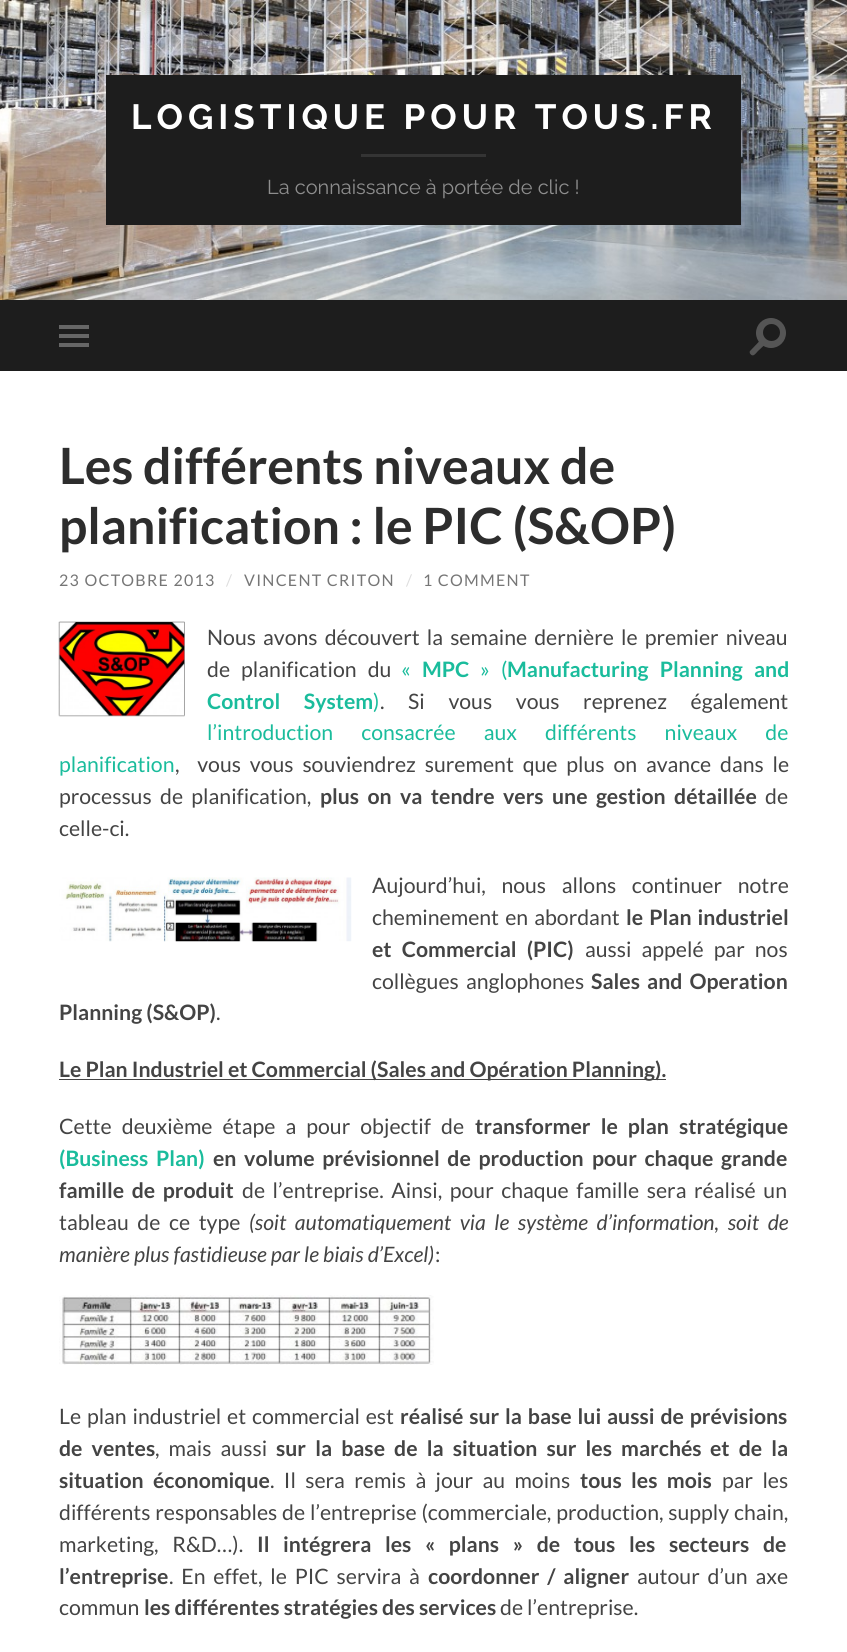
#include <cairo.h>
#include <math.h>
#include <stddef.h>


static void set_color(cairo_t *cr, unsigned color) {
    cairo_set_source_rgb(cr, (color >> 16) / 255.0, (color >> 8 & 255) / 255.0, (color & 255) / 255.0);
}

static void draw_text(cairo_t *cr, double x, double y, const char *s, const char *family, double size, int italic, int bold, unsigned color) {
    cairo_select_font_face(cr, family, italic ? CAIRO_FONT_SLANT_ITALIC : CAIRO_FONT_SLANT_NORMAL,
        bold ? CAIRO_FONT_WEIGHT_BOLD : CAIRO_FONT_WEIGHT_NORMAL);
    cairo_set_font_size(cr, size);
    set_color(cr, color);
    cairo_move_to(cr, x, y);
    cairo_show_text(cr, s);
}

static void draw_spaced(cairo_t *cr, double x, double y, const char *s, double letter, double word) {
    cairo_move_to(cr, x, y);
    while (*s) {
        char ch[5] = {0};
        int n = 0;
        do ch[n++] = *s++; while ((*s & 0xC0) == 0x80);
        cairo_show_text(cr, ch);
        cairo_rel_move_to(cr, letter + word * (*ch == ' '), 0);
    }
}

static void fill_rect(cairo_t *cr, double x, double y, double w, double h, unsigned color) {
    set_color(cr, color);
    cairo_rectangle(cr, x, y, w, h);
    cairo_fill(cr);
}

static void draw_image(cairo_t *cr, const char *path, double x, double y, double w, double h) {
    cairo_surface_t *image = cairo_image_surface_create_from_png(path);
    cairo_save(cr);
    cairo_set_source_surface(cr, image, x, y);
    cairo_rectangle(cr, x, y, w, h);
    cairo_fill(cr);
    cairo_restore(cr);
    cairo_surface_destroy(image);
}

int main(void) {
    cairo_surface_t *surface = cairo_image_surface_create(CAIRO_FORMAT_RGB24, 847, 1652);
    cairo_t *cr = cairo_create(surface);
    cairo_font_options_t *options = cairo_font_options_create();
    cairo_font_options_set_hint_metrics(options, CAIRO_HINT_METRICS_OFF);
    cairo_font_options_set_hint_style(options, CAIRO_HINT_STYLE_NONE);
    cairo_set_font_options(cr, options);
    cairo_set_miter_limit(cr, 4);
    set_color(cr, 0xFFFFFF);
    cairo_paint(cr);
    draw_image(cr, "assets/img1.png", 0, 0, 847, 300);
    fill_rect(cr, 106, 75, 635, 150, 0x1D1D1D);
    cairo_select_font_face(cr, "Raleway Thin", CAIRO_FONT_SLANT_NORMAL, CAIRO_FONT_WEIGHT_NORMAL);
    cairo_set_font_size(cr, 35);
    set_color(cr, 0xFFFFFF);
    draw_spaced(cr, 131, 129, "LOGISTIQUE POUR TOUS.FR", 5, 0);
    fill_rect(cr, 361, 154, 125, 3, 0x343434);
    draw_text(cr, 267, 194, "La connaissance à portée de clic !", "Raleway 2 Thin", 20, 0, 0, 0x8E8E8E);
    fill_rect(cr, 0, 300, 847, 71, 0x1D1D1D);
    fill_rect(cr, 59, 325, 30, 4, 0x666666);
    fill_rect(cr, 59, 334, 30, 4, 0x666666);
    fill_rect(cr, 59, 343, 30, 4, 0x666666);
    set_color(cr, 0x555555);
    cairo_new_path(cr);
    cairo_arc(cr, 771, 333, 15, 0, 2 * M_PI);
    cairo_fill(cr);
    set_color(cr, 0x1D1D1D);
    cairo_arc(cr, 771.5, 332.5, 8.5, 0, 2 * M_PI);
    cairo_fill(cr);
    set_color(cr, 0x555555);
    cairo_new_path(cr);
    cairo_move_to(cr, 750.5, 350.5);
    cairo_line_to(cr, 761, 339.5);
    cairo_line_to(cr, 765.5, 344);
    cairo_line_to(cr, 758, 351);
    cairo_curve_to(cr, 755.5, 353.5, 753, 358, 750, 353.5);
    cairo_curve_to(cr, 749.5, 352.5, 749.5, 351, 750.5, 350.5);
    cairo_close_path(cr);
    cairo_fill(cr);
    draw_text(cr, 59, 484, "Les différents niveaux de", "Lato", 50, 0, 1, 0x2D2D2D);
    draw_text(cr, 59, 544, "planification : le PIC (S&OP)", "Lato", 50, 0, 1, 0x2D2D2D);
    cairo_select_font_face(cr, "Lato", CAIRO_FONT_SLANT_NORMAL, CAIRO_FONT_WEIGHT_NORMAL);
    cairo_set_font_size(cr, 16);
    set_color(cr, 0x767676);
    draw_spaced(cr, 59, 586, "23 OCTOBRE 2013", 1.25, 0);
    set_color(cr, 0xDDDDDD);
    draw_spaced(cr, 226, 586, "/", 1.25, 0);
    set_color(cr, 0x767676);
    draw_spaced(cr, 244, 586, "VINCENT CRITON", 1.25, 0);
    set_color(cr, 0xDDDDDD);
    draw_spaced(cr, 406, 586, "/", 1.25, 0);
    set_color(cr, 0x767676);
    draw_spaced(cr, 423, 586, "1 COMMENT", 1.25, 0);
    draw_image(cr, "assets/img2.png", 58, 621, 127, 96);
    cairo_set_font_size(cr, 21.25);
    set_color(cr, 0x444444);
    draw_spaced(cr, 207, 645, "Nous avons découvert la semaine dernière le premier niveau", 0, 3);
    draw_spaced(cr, 207, 677, "de planification du", 0, 7);
    draw_text(cr, 401, 677, "«", "Lato", 21.25, 0, 0, 0x1ABC9C);
    draw_text(cr, 422, 677, "MPC", "Lato", 21.25, 0, 1, 0x1ABC9C);
    cairo_select_font_face(cr, "Lato", CAIRO_FONT_SLANT_NORMAL, CAIRO_FONT_WEIGHT_NORMAL);
    draw_spaced(cr, 480, 677, "» (", 0, 7);
    cairo_select_font_face(cr, "Lato", CAIRO_FONT_SLANT_NORMAL, CAIRO_FONT_WEIGHT_BOLD);
    draw_spaced(cr, 507, 677, "Manufacturing Planning and", 0, 7);
    draw_spaced(cr, 207, 709, "Control System", 0, 19.5);
    draw_text(cr, 373, 709, ")", "Lato", 21.25, 0, 0, 0x1ABC9C);
    set_color(cr, 0x444444);
    draw_spaced(cr, 380, 709, ". Si vous vous reprenez également", 0, 19.5);
    set_color(cr, 0x1ABC9C);
    draw_spaced(cr, 207, 740, "l’introduction consacrée aux différents niveaux de", 0, 24);
    draw_text(cr, 59, 772, "planification", "Lato", 21.25, 0, 0, 0x1ABC9C);
    set_color(cr, 0x444444);
    draw_spaced(cr, 175, 772, ",  vous vous souviendrez surement que plus on avance dans le", 0, 4.75);
    draw_spaced(cr, 59, 804, "processus de planification,", 0, 4.25);
    cairo_select_font_face(cr, "Lato", CAIRO_FONT_SLANT_NORMAL, CAIRO_FONT_WEIGHT_BOLD);
    draw_spaced(cr, 320, 804, "plus on va tendre vers une gestion détaillée", 0, 4.25);
    draw_text(cr, 765, 804, "de", "Lato", 21.25, 0, 0, 0x444444);
    draw_text(cr, 59, 836, "celle-ci.", "Lato", 21.25, 0, 0, 0x444444);
    draw_image(cr, "assets/img3.png", 59, 877, 293, 65);
    draw_spaced(cr, 372, 893, "Aujourd’hui, nous allons continuer notre", 0, 11.5);
    draw_spaced(cr, 372, 925, "cheminement en abordant", 0, 2);
    cairo_select_font_face(cr, "Lato", CAIRO_FONT_SLANT_NORMAL, CAIRO_FONT_WEIGHT_BOLD);
    draw_spaced(cr, 626, 925, "le Plan industriel", 0, 2);
    draw_spaced(cr, 372, 957, "et Commercial (PIC)", 0, 6);
    cairo_select_font_face(cr, "Lato", CAIRO_FONT_SLANT_NORMAL, CAIRO_FONT_WEIGHT_NORMAL);
    draw_spaced(cr, 585, 957, "aussi appelé par nos", 0, 6);
    draw_spaced(cr, 372, 989, "collègues anglophones", 0, 3);
    cairo_select_font_face(cr, "Lato", CAIRO_FONT_SLANT_NORMAL, CAIRO_FONT_WEIGHT_BOLD);
    draw_spaced(cr, 591, 989, "Sales and Operation", 0, 3);
    draw_text(cr, 59, 1020, "Planning (S&OP)", "Lato", 21.25, 0, 1, 0x444444);
    draw_text(cr, 216, 1020, ".", "Lato", 21.25, 0, 0, 0x444444);
    fill_rect(cr, 59, 1079, 607, 1, 0x444444);
    draw_text(cr, 59, 1077, "Le Plan Industriel et Commercial (Sales and Opération Planning).", "Lato", 21.25, 0, 1, 0x444444);
    cairo_select_font_face(cr, "Lato", CAIRO_FONT_SLANT_NORMAL, CAIRO_FONT_WEIGHT_NORMAL);
    draw_spaced(cr, 59, 1134, "Cette deuxième étape a pour objectif de", 0, 6);
    cairo_select_font_face(cr, "Lato", CAIRO_FONT_SLANT_NORMAL, CAIRO_FONT_WEIGHT_BOLD);
    draw_spaced(cr, 475, 1134, "transformer le plan stratégique", 0, 6);
    set_color(cr, 0x1ABC9C);
    draw_spaced(cr, 59, 1166, "(Business Plan)", 0, 3.5);
    set_color(cr, 0x444444);
    draw_spaced(cr, 213, 1166, "en volume prévisionnel de production", 0, 3.5);
    draw_spaced(cr, 592, 1166, "pour chaque grande", 0, 3.5);
    draw_spaced(cr, 59, 1198, "famille de produit", 0, 3.5);
    cairo_select_font_face(cr, "Lato", CAIRO_FONT_SLANT_NORMAL, CAIRO_FONT_WEIGHT_NORMAL);
    draw_spaced(cr, 242, 1198, "de l’entreprise. Ainsi, pour chaque famille sera réalisé un", 0, 3.5);
    draw_spaced(cr, 59, 1230, "tableau de ce type", 0, 4.5);
    cairo_select_font_face(cr, "Lato", CAIRO_FONT_SLANT_ITALIC, CAIRO_FONT_WEIGHT_NORMAL);
    draw_spaced(cr, 249, 1230, "(soit automatiquement via le système d’information, soit de", 0, 4.5);
    draw_text(cr, 59, 1262, "manière plus fastidieuse par le biais d’Excel)", "Lato", 21.25, 1, 0, 0x444444);
    draw_text(cr, 435, 1262, ":", "Lato", 21.25, 0, 0, 0x444444);
    draw_image(cr, "assets/img4.png", 59, 1295, 375, 70);
    draw_spaced(cr, 59, 1424, "Le plan industriel et commercial est", 0, 1.75);
    cairo_select_font_face(cr, "Lato", CAIRO_FONT_SLANT_NORMAL, CAIRO_FONT_WEIGHT_BOLD);
    draw_spaced(cr, 400, 1424, "réalisé sur la base lui aussi de prévisions", 0, 1.75);
    draw_spaced(cr, 59, 1456, "de ventes", 0, 5);
    cairo_select_font_face(cr, "Lato", CAIRO_FONT_SLANT_NORMAL, CAIRO_FONT_WEIGHT_NORMAL);
    draw_spaced(cr, 155, 1456, ", mais aussi", 0, 5);
    cairo_select_font_face(cr, "Lato", CAIRO_FONT_SLANT_NORMAL, CAIRO_FONT_WEIGHT_BOLD);
    draw_spaced(cr, 276, 1456, "sur la base de la situation sur les marchés", 0, 5);
    draw_spaced(cr, 710, 1456, "et de la", 0, 5);
    draw_spaced(cr, 59, 1488, "situation économique", 0, 5.25);
    cairo_select_font_face(cr, "Lato", CAIRO_FONT_SLANT_NORMAL, CAIRO_FONT_WEIGHT_NORMAL);
    draw_spaced(cr, 270, 1488, ". Il sera remis à jour au moins", 0, 5.25);
    cairo_select_font_face(cr, "Lato", CAIRO_FONT_SLANT_NORMAL, CAIRO_FONT_WEIGHT_BOLD);
    draw_spaced(cr, 580, 1488, "tous les mois", 0, 5.25);
    cairo_select_font_face(cr, "Lato", CAIRO_FONT_SLANT_NORMAL, CAIRO_FONT_WEIGHT_NORMAL);
    draw_spaced(cr, 722, 1488, "par les", 0, 5.25);
    draw_spaced(cr, 59, 1520, "différents responsables de l’entreprise (commerciale, production, supply chain,", 0, 0.75);
    draw_spaced(cr, 59, 1552, "marketing, R&D…).", 0, 9.5);
    cairo_select_font_face(cr, "Lato", CAIRO_FONT_SLANT_NORMAL, CAIRO_FONT_WEIGHT_BOLD);
    draw_spaced(cr, 257, 1552, "Il intégrera les « plans » de tous les secteurs de", 0, 9.5);
    draw_text(cr, 59, 1584, "l’entreprise", "Lato", 21.25, 0, 1, 0x444444);
    cairo_select_font_face(cr, "Lato", CAIRO_FONT_SLANT_NORMAL, CAIRO_FONT_WEIGHT_NORMAL);
    draw_spaced(cr, 169, 1584, ". En effet, le PIC servira à", 0, 3.75);
    cairo_select_font_face(cr, "Lato", CAIRO_FONT_SLANT_NORMAL, CAIRO_FONT_WEIGHT_BOLD);
    draw_spaced(cr, 428, 1584, "coordonner / aligner", 0, 3.75);
    cairo_select_font_face(cr, "Lato", CAIRO_FONT_SLANT_NORMAL, CAIRO_FONT_WEIGHT_NORMAL);
    draw_spaced(cr, 637, 1584, "autour d’un axe", 0, 3.75);
    draw_text(cr, 59, 1615, "commun", "Lato", 21.25, 0, 0, 0x444444);
    draw_text(cr, 144, 1615, "les différentes stratégies des services", "Lato", 21.25, 0, 1, 0x444444);
    draw_text(cr, 500, 1615, "de l’entreprise.", "Lato", 21.25, 0, 0, 0x444444);
    cairo_surface_write_to_png(surface, "output.png");
    cairo_font_options_destroy(options);
    cairo_destroy(cr);
    cairo_surface_destroy(surface);
    return 0;
}
